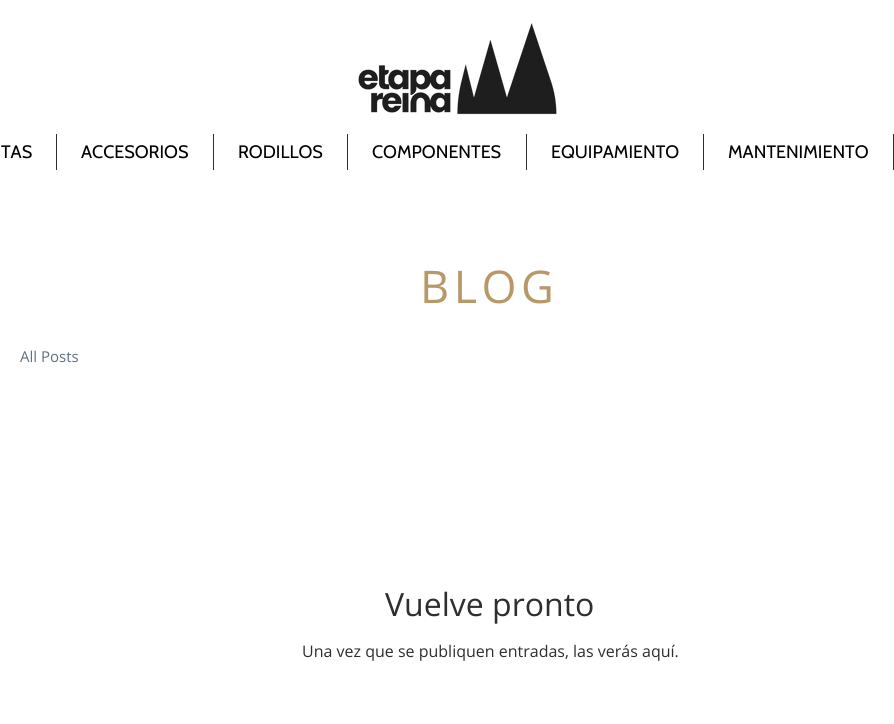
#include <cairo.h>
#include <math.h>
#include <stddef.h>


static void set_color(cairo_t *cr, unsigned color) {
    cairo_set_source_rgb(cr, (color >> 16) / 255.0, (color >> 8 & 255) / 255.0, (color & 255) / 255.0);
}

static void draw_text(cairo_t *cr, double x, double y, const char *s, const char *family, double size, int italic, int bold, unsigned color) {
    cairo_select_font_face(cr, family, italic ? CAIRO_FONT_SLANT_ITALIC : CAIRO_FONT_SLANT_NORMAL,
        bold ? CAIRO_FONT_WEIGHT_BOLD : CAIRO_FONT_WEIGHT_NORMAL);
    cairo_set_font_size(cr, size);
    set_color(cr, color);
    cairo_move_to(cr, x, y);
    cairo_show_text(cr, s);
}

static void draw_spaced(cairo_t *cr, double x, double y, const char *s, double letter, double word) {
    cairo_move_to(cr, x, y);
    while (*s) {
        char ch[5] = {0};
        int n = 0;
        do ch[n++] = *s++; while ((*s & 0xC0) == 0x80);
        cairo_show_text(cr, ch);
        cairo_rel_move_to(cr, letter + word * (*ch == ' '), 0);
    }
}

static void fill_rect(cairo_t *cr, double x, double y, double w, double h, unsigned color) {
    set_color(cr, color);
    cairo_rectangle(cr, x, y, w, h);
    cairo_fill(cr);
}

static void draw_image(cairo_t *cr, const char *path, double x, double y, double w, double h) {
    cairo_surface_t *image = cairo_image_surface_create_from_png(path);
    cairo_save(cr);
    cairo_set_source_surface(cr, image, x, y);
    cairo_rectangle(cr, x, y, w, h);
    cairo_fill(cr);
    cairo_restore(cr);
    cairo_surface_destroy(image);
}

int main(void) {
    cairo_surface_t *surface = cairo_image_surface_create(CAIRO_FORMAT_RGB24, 894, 724);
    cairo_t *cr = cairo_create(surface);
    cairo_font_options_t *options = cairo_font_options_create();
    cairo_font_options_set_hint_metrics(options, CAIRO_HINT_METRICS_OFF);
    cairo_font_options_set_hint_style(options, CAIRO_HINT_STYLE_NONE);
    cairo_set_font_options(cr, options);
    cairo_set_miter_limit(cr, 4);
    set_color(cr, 0xFFFFFF);
    cairo_paint(cr);
    draw_image(cr, "assets/img1.png", 358, 65, 93, 48);
    draw_image(cr, "assets/img2.png", 457, 23, 100, 92);
    draw_text(cr, 1, 158, "TAS", "Cabin", 18, 0, 0, 0x000000);
    fill_rect(cr, 56, 134, 1, 36, 0x2F2E2E);
    draw_text(cr, 81, 158, "ACCESORIOS", "Cabin", 18, 0, 0, 0x000000);
    fill_rect(cr, 213, 134, 1, 36, 0x2F2E2E);
    draw_text(cr, 238, 158, "RODILLOS", "Cabin", 18, 0, 0, 0x000000);
    fill_rect(cr, 347, 134, 1, 36, 0x2F2E2E);
    draw_text(cr, 372, 158, "COMPONENTES", "Cabin", 18, 0, 0, 0x000000);
    fill_rect(cr, 526, 134, 1, 36, 0x2F2E2E);
    draw_text(cr, 551, 158, "EQUIPAMIENTO", "Cabin", 18, 0, 0, 0x000000);
    fill_rect(cr, 703, 134, 1, 36, 0x2F2E2E);
    draw_text(cr, 728, 158, "MANTENIMIENTO", "Cabin", 18, 0, 0, 0x000000);
    fill_rect(cr, 893, 134, 1, 36, 0x2F2E2E);
    cairo_select_font_face(cr, "Open Sans", CAIRO_FONT_SLANT_NORMAL, CAIRO_FONT_WEIGHT_NORMAL);
    cairo_set_font_size(cr, 45);
    set_color(cr, 0xB99867);
    draw_spaced(cr, 420, 303, "BLOG", 4.5, 0);
    draw_text(cr, 20, 362, "All Posts", "Open Sans", 15, 0, 0, 0x5F7081);
    draw_text(cr, 385, 616, "Vuelve pronto", "Open Sans", 32, 0, 0, 0x2F2E2E);
    draw_text(cr, 302, 657, "Una vez que se publiquen entradas, las verás aquí.", "Open Sans", 16, 0, 0, 0x2F2E2E);
    cairo_surface_write_to_png(surface, "output.png");
    cairo_font_options_destroy(options);
    cairo_destroy(cr);
    cairo_surface_destroy(surface);
    return 0;
}
